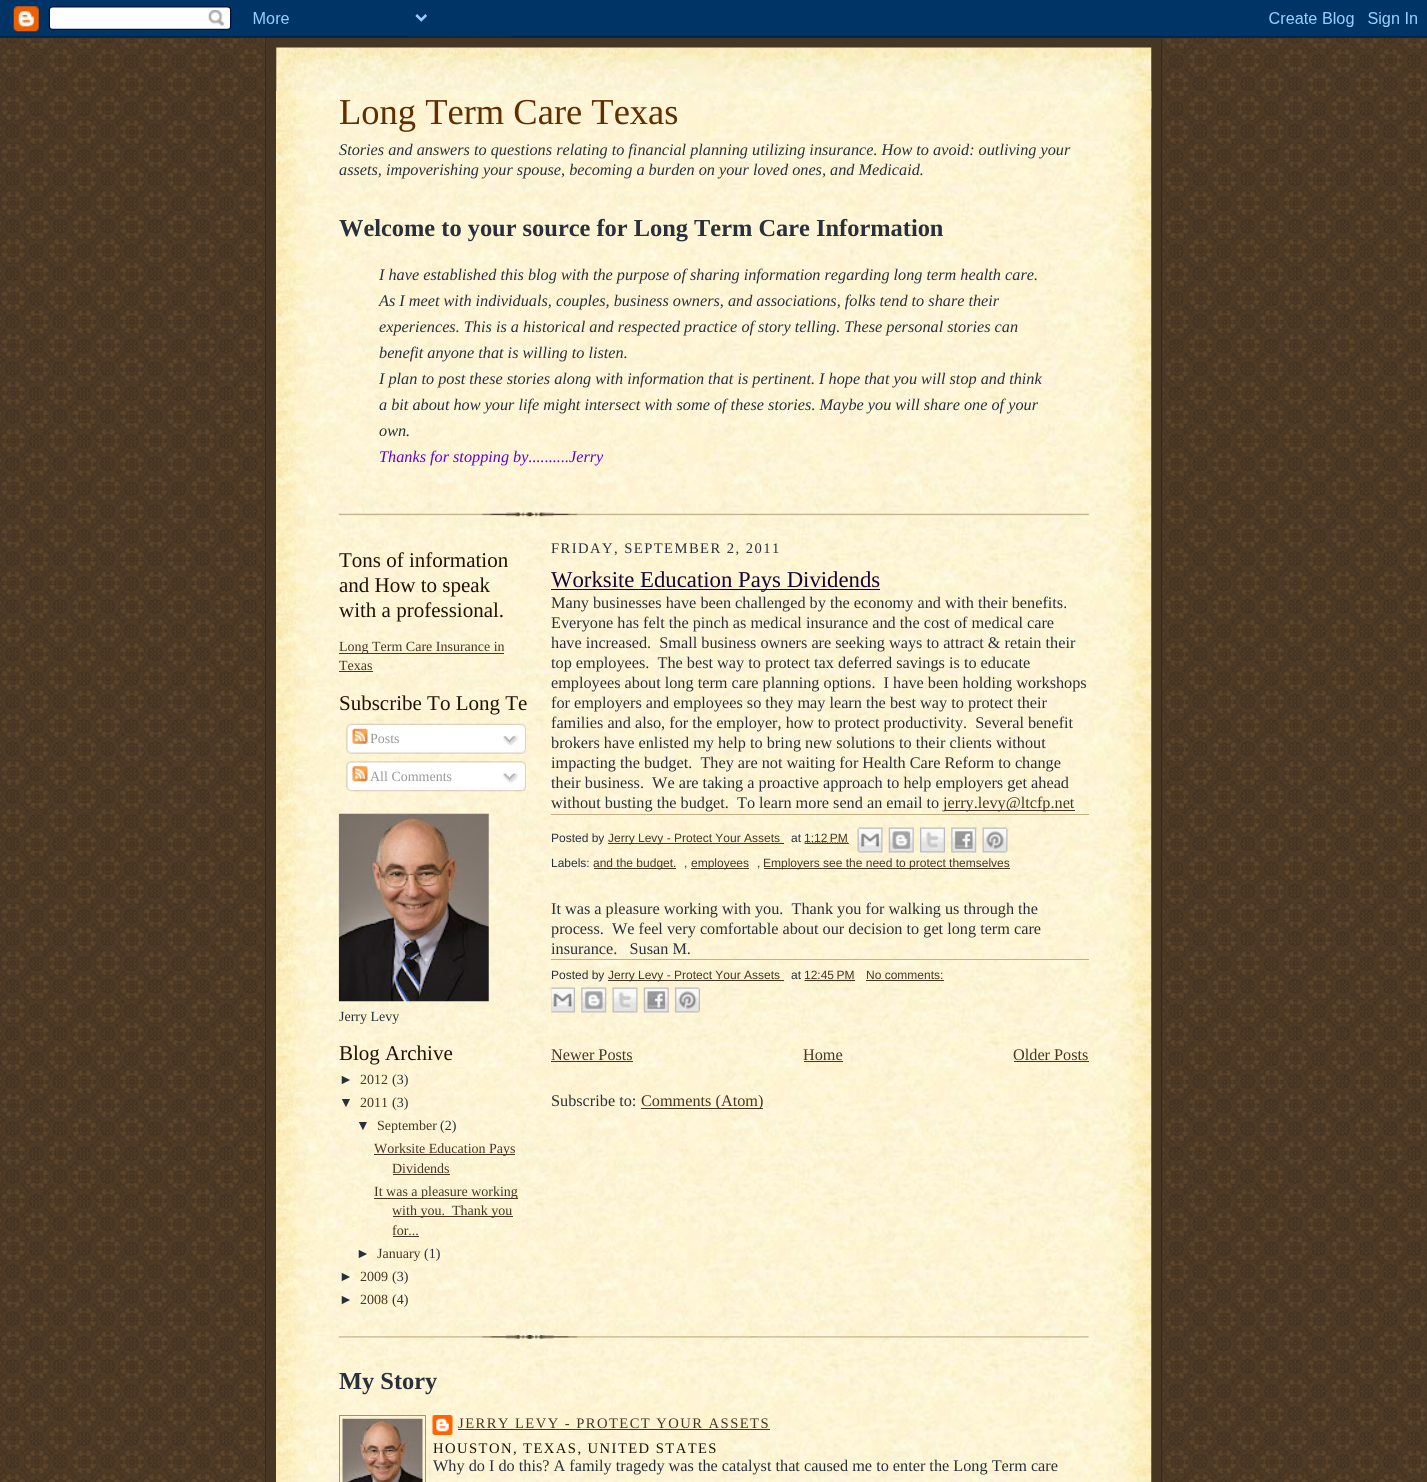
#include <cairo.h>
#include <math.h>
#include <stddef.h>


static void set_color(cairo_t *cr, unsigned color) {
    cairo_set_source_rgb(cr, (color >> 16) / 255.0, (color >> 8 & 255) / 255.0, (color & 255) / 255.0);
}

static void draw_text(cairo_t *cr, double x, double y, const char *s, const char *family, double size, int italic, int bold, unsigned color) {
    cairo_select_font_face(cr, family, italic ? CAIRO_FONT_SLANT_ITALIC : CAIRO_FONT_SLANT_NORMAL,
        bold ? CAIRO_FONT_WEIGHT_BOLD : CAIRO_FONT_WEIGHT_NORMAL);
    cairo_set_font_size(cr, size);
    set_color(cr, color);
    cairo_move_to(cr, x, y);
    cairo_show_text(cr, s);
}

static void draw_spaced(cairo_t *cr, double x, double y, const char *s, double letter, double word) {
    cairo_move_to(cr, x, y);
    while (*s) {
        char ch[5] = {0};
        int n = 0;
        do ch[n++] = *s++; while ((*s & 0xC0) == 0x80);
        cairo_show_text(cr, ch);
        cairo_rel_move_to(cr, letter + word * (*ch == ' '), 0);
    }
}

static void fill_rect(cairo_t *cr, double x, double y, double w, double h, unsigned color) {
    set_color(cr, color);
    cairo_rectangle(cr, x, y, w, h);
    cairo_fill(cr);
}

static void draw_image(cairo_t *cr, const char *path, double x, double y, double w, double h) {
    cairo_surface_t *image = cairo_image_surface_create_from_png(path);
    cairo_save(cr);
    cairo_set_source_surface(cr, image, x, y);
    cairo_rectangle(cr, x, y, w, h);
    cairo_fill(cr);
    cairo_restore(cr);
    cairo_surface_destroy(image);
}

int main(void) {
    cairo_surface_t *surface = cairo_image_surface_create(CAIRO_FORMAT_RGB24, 1427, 1482);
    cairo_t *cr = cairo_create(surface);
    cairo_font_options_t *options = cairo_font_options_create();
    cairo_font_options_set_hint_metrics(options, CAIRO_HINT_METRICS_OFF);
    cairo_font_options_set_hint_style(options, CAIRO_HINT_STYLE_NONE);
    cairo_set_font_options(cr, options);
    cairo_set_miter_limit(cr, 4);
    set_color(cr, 0xFFFFFF);
    cairo_paint(cr);
    draw_image(cr, "assets/img1.png", 0, 36, 1427, 1446);
    draw_image(cr, "assets/img2.png", 0, 0, 1427, 38);
    fill_rect(cr, 266, 38, 897, 1444, 0x473624);
    fill_rect(cr, 1161, 38, 1, 1444, 0x332A24);
    fill_rect(cr, 265, 38, 1, 1444, 0x332A24);
    draw_image(cr, "assets/img3.png", 276, 47, 876, 62);
    fill_rect(cr, 276, 91, 875, 1391, 0xFFF3DB);
    draw_image(cr, "assets/img4.png", 276, 91, 876, 1391);
    draw_image(cr, "assets/img5.png", 338, 512, 751, 5);
    draw_text(cr, 339, 124, "Long Term Care Texas", "Liberation Serif", 36.5, 0, 0, 0x612E00);
    draw_text(cr, 339, 155, "Stories and answers to questions relating to financial planning utilizing insurance. How to avoid: outliving your", "Liberation Serif", 16.25, 1, 0, 0x29303B);
    draw_text(cr, 339, 175, "assets, impoverishing your spouse, becoming a burden on your loved ones, and Medicaid.", "Liberation Serif", 16.25, 1, 0, 0x29303B);
    draw_text(cr, 339, 236, "Welcome to your source for Long Term Care Information", "Liberation Serif", 24.4, 0, 1, 0x29303B);
    draw_text(cr, 379, 280, "I have established this blog with the purpose of sharing information regarding long term health care.", "Liberation Serif", 16.25, 1, 0, 0x29303B);
    draw_text(cr, 379, 306, "As I meet with individuals, couples, business owners, and associations, folks tend to share their", "Liberation Serif", 16.25, 1, 0, 0x29303B);
    draw_text(cr, 379, 332, "experiences. This is a historical and respected practice of story telling. These personal stories can", "Liberation Serif", 16.25, 1, 0, 0x29303B);
    draw_text(cr, 379, 358, "benefit anyone that is willing to listen.", "Liberation Serif", 16.25, 1, 0, 0x29303B);
    draw_text(cr, 379, 384, "I plan to post these stories along with information that is pertinent. I hope that you will stop and think", "Liberation Serif", 16.25, 1, 0, 0x29303B);
    draw_text(cr, 379, 410, "a bit about how your life might intersect with some of these stories. Maybe you will share one of your", "Liberation Serif", 16.25, 1, 0, 0x29303B);
    draw_text(cr, 379, 436, "own.", "Liberation Serif", 16.25, 1, 0, 0x29303B);
    draw_text(cr, 379, 462, "Thanks for stopping by..........Jerry", "Liberation Serif", 16.25, 1, 0, 0x6600CC);
    draw_text(cr, 339, 567, "Tons of information", "Liberation Serif", 21, 0, 0, 0x211104);
    draw_text(cr, 339, 592, "and How to speak", "Liberation Serif", 21, 0, 0, 0x211104);
    draw_text(cr, 339, 617, "with a professional.", "Liberation Serif", 21, 0, 0, 0x211104);
    fill_rect(cr, 339, 653, 165, 1, 0x473624);
    draw_text(cr, 339, 651, "Long Term Care Insurance in", "Liberation Serif", 14, 0, 0, 0x473624);
    draw_text(cr, 339, 670, "Texas", "Liberation Serif", 14, 0, 0, 0x473624);
    fill_rect(cr, 339, 671, 34, 1, 0x473624);
    draw_text(cr, 339, 710, "Subscribe To Long Te", "Liberation Serif", 21, 0, 0, 0x211104);
    draw_image(cr, "assets/img6.png", 346, 723, 180, 27);
    draw_image(cr, "assets/img7.png", 352, 728, 16, 16);
    draw_text(cr, 370, 743, "Posts", "Liberation Serif", 14, 0, 0, 0x999999);
    draw_image(cr, "assets/img8.png", 502, 735, 17, 11);
    draw_image(cr, "assets/img9.png", 346, 750, 180, 4);
    draw_image(cr, "assets/img10.png", 346, 761, 180, 27);
    draw_image(cr, "assets/img11.png", 352, 766, 16, 16);
    draw_text(cr, 370, 781, "All Comments", "Liberation Serif", 14, 0, 0, 0x999999);
    draw_image(cr, "assets/img12.png", 502, 773, 17, 11);
    draw_image(cr, "assets/img13.png", 346, 787, 180, 5);
    draw_image(cr, "assets/img14.png", 338, 813, 151, 189);
    draw_text(cr, 339, 1021, "Jerry Levy", "Liberation Serif", 14, 0, 0, 0x29303B);
    draw_text(cr, 339, 1060, "Blog Archive", "Liberation Serif", 21, 0, 0, 0x211104);
    draw_text(cr, 339, 1084, "►", "Liberation Sans", 14, 0, 0, 0x29303B);
    draw_text(cr, 360, 1084, "2012", "Liberation Serif", 14, 0, 0, 0x473624);
    draw_text(cr, 392, 1084, "(3)", "Liberation Serif", 14, 0, 0, 0x29303B);
    draw_text(cr, 339, 1107, "▼", "Liberation Sans", 14, 0, 0, 0x29303B);
    draw_text(cr, 360, 1107, "2011", "Liberation Serif", 14, 0, 0, 0x473624);
    draw_text(cr, 392, 1107, "(3)", "Liberation Serif", 14, 0, 0, 0x29303B);
    draw_text(cr, 356, 1130, "▼", "Liberation Sans", 14, 0, 0, 0x29303B);
    draw_text(cr, 377, 1130, "September", "Liberation Serif", 14, 0, 0, 0x473624);
    draw_text(cr, 440, 1130, "(2)", "Liberation Serif", 14, 0, 0, 0x29303B);
    fill_rect(cr, 374, 1154, 141, 1, 0x473624);
    draw_text(cr, 374, 1153, "Worksite Education Pays", "Liberation Serif", 14, 0, 0, 0x473624);
    draw_text(cr, 392, 1173, "Dividends", "Liberation Serif", 14, 0, 0, 0x473624);
    fill_rect(cr, 393, 1174, 57, 1, 0x473624);
    fill_rect(cr, 374, 1198, 144, 1, 0x473624);
    draw_text(cr, 374, 1196, "It was a pleasure working", "Liberation Serif", 14, 0, 0, 0x473624);
    fill_rect(cr, 393, 1216, 120, 1, 0x473624);
    draw_text(cr, 392, 1215, "with you.  Thank you", "Liberation Serif", 14, 0, 0, 0x473624);
    draw_text(cr, 392, 1235, "for...", "Liberation Serif", 14, 0, 0, 0x473624);
    fill_rect(cr, 393, 1236, 26, 1, 0x473624);
    draw_text(cr, 356, 1258, "►", "Liberation Sans", 14, 0, 0, 0x29303B);
    draw_text(cr, 377, 1258, "January", "Liberation Serif", 14, 0, 0, 0x473624);
    draw_text(cr, 424, 1258, "(1)", "Liberation Serif", 14, 0, 0, 0x29303B);
    draw_text(cr, 339, 1281, "►", "Liberation Sans", 14, 0, 0, 0x29303B);
    draw_text(cr, 360, 1281, "2009", "Liberation Serif", 14, 0, 0, 0x473624);
    draw_text(cr, 392, 1281, "(3)", "Liberation Serif", 14, 0, 0, 0x29303B);
    draw_text(cr, 339, 1304, "►", "Liberation Sans", 14, 0, 0, 0x29303B);
    draw_text(cr, 360, 1304, "2008", "Liberation Serif", 14, 0, 0, 0x473624);
    draw_text(cr, 392, 1304, "(4)", "Liberation Serif", 14, 0, 0, 0x29303B);
    cairo_set_font_size(cr, 14.6);
    draw_spaced(cr, 551, 553, "FRIDAY, SEPTEMBER 2, 2011", 1.45, 0);
    fill_rect(cr, 551, 589, 329, 1, 0x1B0431);
    draw_text(cr, 551, 587, "Worksite Education Pays Dividends", "Liberation Serif", 22.75, 0, 0, 0x1B0431);
    draw_text(cr, 551, 608, "Many businesses have been challenged by the economy and with their benefits.", "Liberation Serif", 16.25, 0, 0, 0x29303B);
    draw_text(cr, 551, 628, "Everyone has felt the pinch as medical insurance and the cost of medical care", "Liberation Serif", 16.25, 0, 0, 0x29303B);
    draw_text(cr, 551, 648, "have increased.  Small business owners are seeking ways to attract & retain their", "Liberation Serif", 16.25, 0, 0, 0x29303B);
    draw_text(cr, 551, 668, "top employees.  The best way to protect tax deferred savings is to educate", "Liberation Serif", 16.25, 0, 0, 0x29303B);
    draw_text(cr, 551, 688, "employees about long term care planning options.  I have been holding workshops", "Liberation Serif", 16.25, 0, 0, 0x29303B);
    draw_text(cr, 551, 708, "for employers and employees so they may learn the best way to protect their", "Liberation Serif", 16.25, 0, 0, 0x29303B);
    draw_text(cr, 551, 728, "families and also, for the employer, how to protect productivity.  Several benefit", "Liberation Serif", 16.25, 0, 0, 0x29303B);
    draw_text(cr, 551, 748, "brokers have enlisted my help to bring new solutions to their clients without", "Liberation Serif", 16.25, 0, 0, 0x29303B);
    draw_text(cr, 551, 768, "impacting the budget.  They are not waiting for Health Care Reform to change", "Liberation Serif", 16.25, 0, 0, 0x29303B);
    draw_text(cr, 551, 788, "their business.  We are taking a proactive approach to help employers get ahead", "Liberation Serif", 16.25, 0, 0, 0x29303B);
    draw_text(cr, 551, 808, "without busting the budget.  To learn more send an email to", "Liberation Serif", 16.25, 0, 0, 0x29303B);
    fill_rect(cr, 944, 810, 131, 1, 0x473624);
    draw_text(cr, 943, 808, "jerry.levy@ltcfp.net", "Liberation Serif", 16.25, 0, 0, 0x473624);
    fill_rect(cr, 551, 814, 538, 1, 0xBFB186);
    draw_text(cr, 551, 842, "Posted by", "Liberation Sans", 12, 0, 0, 0x29303B);
    fill_rect(cr, 608, 843, 176, 1, 0x473624);
    draw_text(cr, 608, 842, "Jerry Levy - Protect Your Assets", "Liberation Sans", 12, 0, 0, 0x473624);
    draw_text(cr, 791, 842, "at", "Liberation Sans", 12, 0, 0, 0x29303B);
    cairo_new_path(cr);
    cairo_move_to(cr, 804.5, 843);
    cairo_line_to(cr, 848, 843);
    set_color(cr, 0x473624);
    cairo_set_line_width(cr, 1.2);
    cairo_set_dash(cr, (double[]){1.25, 1.25}, 2, 0);
    cairo_stroke(cr);
    draw_text(cr, 804, 842, "1:12 PM", "Liberation Sans", 12, 0, 0, 0x473624);
    fill_rect(cr, 805, 843, 44, 1, 0x473624);
    draw_image(cr, "assets/img15.png", 857, 827, 26, 26);
    draw_image(cr, "assets/img16.png", 888, 827, 26, 26);
    draw_image(cr, "assets/img17.png", 920, 827, 25, 26);
    draw_image(cr, "assets/img18.png", 951, 827, 26, 26);
    draw_image(cr, "assets/img19.png", 982, 827, 26, 26);
    draw_text(cr, 551, 867, "Labels:", "Liberation Sans", 12, 0, 0, 0x29303B);
    fill_rect(cr, 594, 868, 82, 1, 0x473624);
    draw_text(cr, 593, 867, "and the budget.", "Liberation Sans", 12, 0, 0, 0x473624);
    draw_text(cr, 684, 867, ",", "Liberation Sans", 12, 0, 0, 0x29303B);
    fill_rect(cr, 691, 868, 58, 1, 0x473624);
    draw_text(cr, 691, 867, "employees", "Liberation Sans", 12, 0, 0, 0x473624);
    draw_text(cr, 757, 867, ",", "Liberation Sans", 12, 0, 0, 0x29303B);
    fill_rect(cr, 764, 868, 246, 1, 0x473624);
    draw_text(cr, 763, 867, "Employers see the need to protect themselves", "Liberation Sans", 12, 0, 0, 0x473624);
    draw_text(cr, 551, 914, "It was a pleasure working with you.  Thank you for walking us through the", "Liberation Serif", 16.25, 0, 0, 0x29303B);
    draw_text(cr, 551, 934, "process.  We feel very comfortable about our decision to get long term care", "Liberation Serif", 16.25, 0, 0, 0x29303B);
    draw_text(cr, 551, 954, "insurance.   Susan M.", "Liberation Serif", 16.25, 0, 0, 0x29303B);
    fill_rect(cr, 551, 959, 538, 1, 0xBFB186);
    draw_text(cr, 551, 979, "Posted by", "Liberation Sans", 12, 0, 0, 0x29303B);
    fill_rect(cr, 608, 980, 176, 1, 0x473624);
    draw_text(cr, 608, 979, "Jerry Levy - Protect Your Assets", "Liberation Sans", 12, 0, 0, 0x473624);
    draw_text(cr, 791, 979, "at", "Liberation Sans", 12, 0, 0, 0x29303B);
    cairo_new_path(cr);
    cairo_move_to(cr, 804.5, 980.5);
    cairo_line_to(cr, 855, 980.5);
    set_color(cr, 0x473624);
    cairo_stroke(cr);
    draw_text(cr, 804, 979, "12:45 PM", "Liberation Sans", 12, 0, 0, 0x473624);
    fill_rect(cr, 805, 980, 50, 1, 0x473624);
    draw_text(cr, 866, 979, "No comments:", "Liberation Sans", 12, 0, 0, 0x473624);
    fill_rect(cr, 866, 980, 78, 1, 0x473624);
    draw_image(cr, "assets/img20.png", 551, 987, 24, 26);
    draw_image(cr, "assets/img21.png", 581, 987, 26, 26);
    draw_image(cr, "assets/img22.png", 612, 987, 26, 26);
    draw_image(cr, "assets/img23.png", 643, 987, 26, 26);
    draw_image(cr, "assets/img24.png", 675, 987, 25, 26);
    draw_text(cr, 551, 1060, "Newer Posts", "Liberation Serif", 16.25, 0, 0, 0x473624);
    fill_rect(cr, 551, 1061, 82, 1, 0x473624);
    draw_text(cr, 803, 1060, "Home", "Liberation Serif", 16.25, 0, 0, 0x473624);
    fill_rect(cr, 804, 1061, 39, 1, 0x473624);
    draw_text(cr, 1013, 1060, "Older Posts", "Liberation Serif", 16.25, 0, 0, 0x473624);
    fill_rect(cr, 1014, 1061, 75, 1, 0x473624);
    draw_text(cr, 551, 1106, "Subscribe to:", "Liberation Serif", 16.25, 0, 0, 0x29303B);
    fill_rect(cr, 641, 1108, 122, 1, 0x473624);
    draw_text(cr, 641, 1106, "Comments (Atom)", "Liberation Serif", 16.25, 0, 0, 0x473624);
    draw_image(cr, "assets/img25.png", 338, 1335, 751, 4);
    draw_text(cr, 339, 1389, "My Story", "Liberation Serif", 24.4, 0, 1, 0x29303B);
    cairo_rectangle(cr, 339.5, 1415.5, 86, 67);
    set_color(cr, 0xA2907D);
    cairo_set_line_width(cr, 1);
    cairo_set_dash(cr, NULL, 0, 0);
    cairo_stroke(cr);
    draw_image(cr, "assets/img26.png", 342, 1418, 81, 64);
    draw_image(cr, "assets/img27.png", 432, 1415, 21, 20);
    cairo_select_font_face(cr, "Liberation Serif", CAIRO_FONT_SLANT_NORMAL, CAIRO_FONT_WEIGHT_NORMAL);
    cairo_set_font_size(cr, 14.6);
    set_color(cr, 0x473624);
    draw_spaced(cr, 458, 1428, "JERRY LEVY - PROTECT YOUR ASSETS", 1.45, 0);
    fill_rect(cr, 458, 1429, 312, 1, 0x473624);
    set_color(cr, 0x211104);
    draw_spaced(cr, 433, 1453, "HOUSTON, TEXAS, UNITED STATES", 1.45, 0);
    draw_text(cr, 433, 1471, "Why do I do this? A family tragedy was the catalyst that caused me to enter the Long Term care", "Liberation Serif", 16.25, 0, 0, 0x29303B);
    cairo_surface_write_to_png(surface, "output.png");
    cairo_font_options_destroy(options);
    cairo_destroy(cr);
    cairo_surface_destroy(surface);
    return 0;
}
